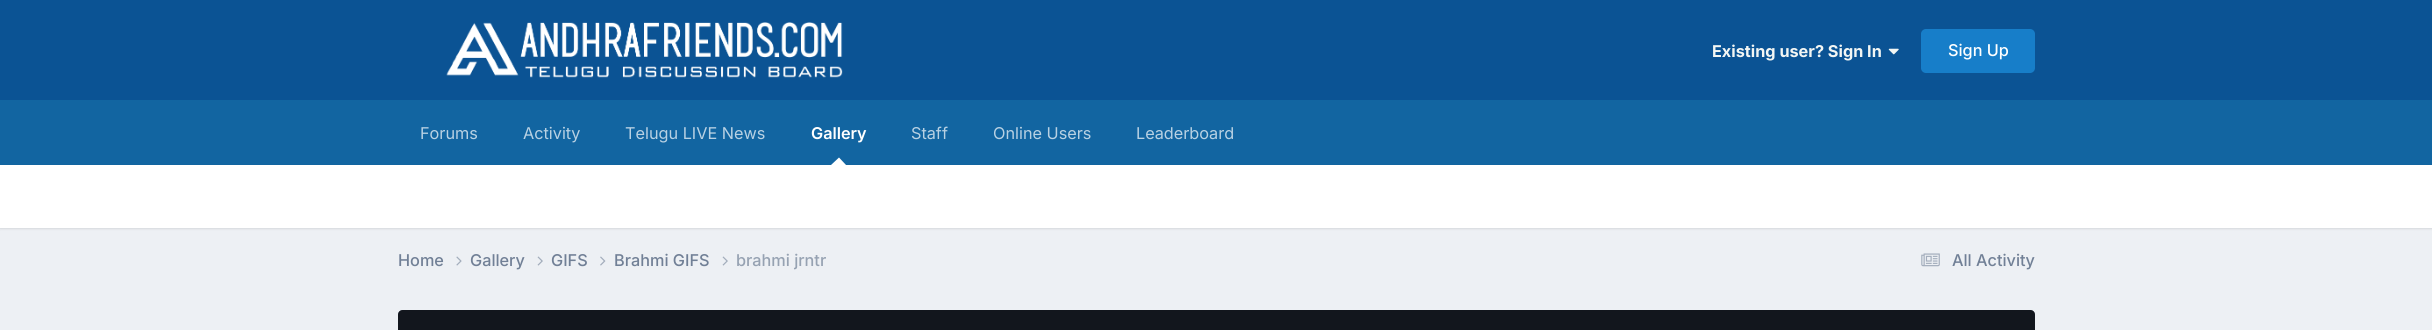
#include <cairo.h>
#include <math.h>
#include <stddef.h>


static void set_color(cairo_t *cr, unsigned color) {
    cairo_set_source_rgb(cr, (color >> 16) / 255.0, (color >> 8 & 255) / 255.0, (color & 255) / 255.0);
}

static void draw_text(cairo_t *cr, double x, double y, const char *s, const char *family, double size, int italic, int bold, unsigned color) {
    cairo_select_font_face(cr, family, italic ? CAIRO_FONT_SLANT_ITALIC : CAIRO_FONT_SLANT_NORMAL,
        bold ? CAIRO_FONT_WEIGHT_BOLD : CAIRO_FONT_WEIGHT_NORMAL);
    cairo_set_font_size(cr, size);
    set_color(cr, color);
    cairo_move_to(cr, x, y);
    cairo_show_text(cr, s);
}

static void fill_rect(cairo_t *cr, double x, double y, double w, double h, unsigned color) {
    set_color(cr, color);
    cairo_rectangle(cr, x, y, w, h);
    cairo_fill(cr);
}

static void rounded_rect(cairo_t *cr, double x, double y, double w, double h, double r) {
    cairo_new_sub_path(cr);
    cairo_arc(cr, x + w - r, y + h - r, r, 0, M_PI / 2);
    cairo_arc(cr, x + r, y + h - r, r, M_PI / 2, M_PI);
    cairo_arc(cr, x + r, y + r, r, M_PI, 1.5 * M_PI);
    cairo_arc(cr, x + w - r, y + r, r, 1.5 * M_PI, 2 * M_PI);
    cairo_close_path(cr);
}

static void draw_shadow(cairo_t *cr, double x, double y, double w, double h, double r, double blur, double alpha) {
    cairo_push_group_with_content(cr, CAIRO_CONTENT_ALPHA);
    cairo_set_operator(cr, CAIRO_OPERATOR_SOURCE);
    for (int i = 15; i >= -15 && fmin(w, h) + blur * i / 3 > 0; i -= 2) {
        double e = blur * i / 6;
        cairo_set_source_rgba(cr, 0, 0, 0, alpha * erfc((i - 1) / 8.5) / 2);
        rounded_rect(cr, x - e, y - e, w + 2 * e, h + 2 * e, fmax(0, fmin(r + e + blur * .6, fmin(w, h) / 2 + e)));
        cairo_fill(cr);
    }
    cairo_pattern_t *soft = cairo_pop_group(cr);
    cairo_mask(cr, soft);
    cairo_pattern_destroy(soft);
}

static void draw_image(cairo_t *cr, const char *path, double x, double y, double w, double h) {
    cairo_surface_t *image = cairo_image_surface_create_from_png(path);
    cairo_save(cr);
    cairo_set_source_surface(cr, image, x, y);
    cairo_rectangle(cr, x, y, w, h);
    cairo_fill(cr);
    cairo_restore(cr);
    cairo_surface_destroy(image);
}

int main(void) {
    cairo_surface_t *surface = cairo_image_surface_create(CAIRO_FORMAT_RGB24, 2432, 330);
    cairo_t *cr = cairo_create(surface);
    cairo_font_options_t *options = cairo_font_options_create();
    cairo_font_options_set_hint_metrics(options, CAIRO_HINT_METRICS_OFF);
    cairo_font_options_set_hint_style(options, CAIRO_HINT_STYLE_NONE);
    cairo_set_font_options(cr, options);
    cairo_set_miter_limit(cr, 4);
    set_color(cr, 0xEDF0F4);
    cairo_paint(cr);
    fill_rect(cr, 0, 0, 2432, 100, 0x0B5394);
    draw_image(cr, "assets/img1.png", 446, 22, 397, 56);
    draw_text(cr, 1712, 57, "Existing user? Sign In", "Inter", 16.25, 0, 1, 0xF3F6F4);
    draw_image(cr, "assets/img2.png", 1888, 48, 11, 7);
    set_color(cr, 0x177EC9);
    rounded_rect(cr, 1921, 29, 114, 44, 5);
    cairo_fill(cr);
    draw_text(cr, 1948, 56, "Sign Up", "Inter Medium", 16.25, 0, 0, 0xFFFFFF);
    fill_rect(cr, 0, 100, 2432, 65, 0x1265A1);
    draw_text(cr, 420, 139, "Forums", "Inter", 16.25, 0, 0, 0xB8D1E3);
    draw_text(cr, 523, 139, "Activity", "Inter", 16.25, 0, 0, 0xB8D1E3);
    draw_text(cr, 625, 139, "Telugu LIVE News", "Inter", 16.25, 0, 0, 0xB8D1E3);
    draw_text(cr, 811, 139, "Gallery", "Inter SemiBold", 16.25, 0, 0, 0xFFFFFF);
    set_color(cr, 0x000000);
    draw_shadow(cr, 0, 166, 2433, 63, 0, 1, 0.1);
    set_color(cr, 0xFFFFFF);
    cairo_new_path(cr);
    cairo_move_to(cr, 846, 165);
    cairo_line_to(cr, 831, 165);
    cairo_line_to(cr, 839, 157.5);
    cairo_close_path(cr);
    cairo_fill(cr);
    draw_text(cr, 911, 139, "Staff", "Inter", 16.25, 0, 0, 0xB8D1E3);
    draw_text(cr, 993, 139, "Online Users", "Inter", 16.25, 0, 0, 0xB8D1E3);
    draw_text(cr, 1136, 139, "Leaderboard", "Inter", 16.25, 0, 0, 0xB8D1E3);
    fill_rect(cr, 0, 165, 2432, 63, 0xFFFFFF);
    draw_text(cr, 398, 266, "Home", "Inter Medium", 16.25, 0, 0, 0x718096);
    draw_image(cr, "assets/img3.png", 456, 256, 6, 10);
    draw_text(cr, 470, 266, "Gallery", "Inter Medium", 16.25, 0, 0, 0x718096);
    draw_image(cr, "assets/img4.png", 537, 256, 6, 10);
    draw_text(cr, 551, 266, "GIFS", "Inter Medium", 16.25, 0, 0, 0x718096);
    draw_image(cr, "assets/img5.png", 600, 256, 6, 10);
    draw_text(cr, 614, 266, "Brahmi GIFS", "Inter Medium", 16.25, 0, 0, 0x718096);
    draw_image(cr, "assets/img4.png", 722, 256, 6, 10);
    draw_text(cr, 736, 266, "brahmi jrntr", "Inter Medium", 16.25, 0, 0, 0x96A2B2);
    draw_image(cr, "assets/img6.png", 1921, 253, 19, 14);
    draw_text(cr, 1952, 266, "All Activity", "Inter Medium", 16.25, 0, 0, 0x718096);
    set_color(cr, 0x2D3748);
    cairo_new_path(cr);
    cairo_move_to(cr, 403, 310);
    cairo_line_to(cr, 2030, 310);
    cairo_curve_to(cr, 2033, 310, 2035, 312, 2035, 315);
    cairo_line_to(cr, 2035, 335);
    cairo_line_to(cr, 398, 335);
    cairo_line_to(cr, 398, 315);
    cairo_curve_to(cr, 398, 312, 400, 310, 403, 310);
    cairo_close_path(cr);
    cairo_fill(cr);
    cairo_set_source_rgba(cr, 0, 0, 0, 0.6);
    cairo_new_path(cr);
    cairo_move_to(cr, 403, 310);
    cairo_line_to(cr, 2030, 310);
    cairo_curve_to(cr, 2033, 310, 2035, 312, 2035, 315);
    cairo_line_to(cr, 2035, 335);
    cairo_line_to(cr, 398, 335);
    cairo_line_to(cr, 398, 315);
    cairo_curve_to(cr, 398, 312, 400, 310, 403, 310);
    cairo_close_path(cr);
    cairo_fill(cr);
    cairo_surface_write_to_png(surface, "output.png");
    cairo_font_options_destroy(options);
    cairo_destroy(cr);
    cairo_surface_destroy(surface);
    return 0;
}
